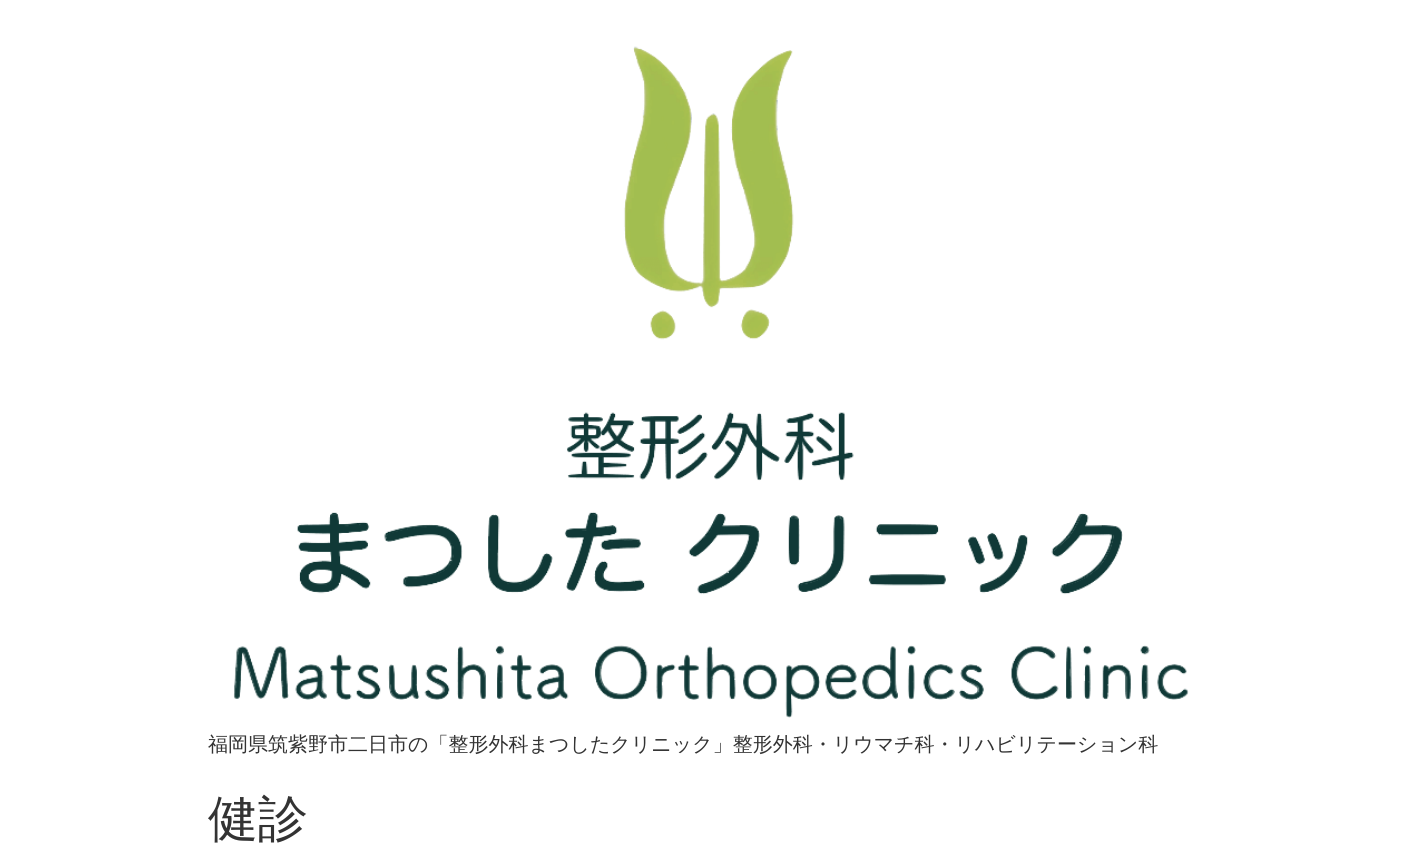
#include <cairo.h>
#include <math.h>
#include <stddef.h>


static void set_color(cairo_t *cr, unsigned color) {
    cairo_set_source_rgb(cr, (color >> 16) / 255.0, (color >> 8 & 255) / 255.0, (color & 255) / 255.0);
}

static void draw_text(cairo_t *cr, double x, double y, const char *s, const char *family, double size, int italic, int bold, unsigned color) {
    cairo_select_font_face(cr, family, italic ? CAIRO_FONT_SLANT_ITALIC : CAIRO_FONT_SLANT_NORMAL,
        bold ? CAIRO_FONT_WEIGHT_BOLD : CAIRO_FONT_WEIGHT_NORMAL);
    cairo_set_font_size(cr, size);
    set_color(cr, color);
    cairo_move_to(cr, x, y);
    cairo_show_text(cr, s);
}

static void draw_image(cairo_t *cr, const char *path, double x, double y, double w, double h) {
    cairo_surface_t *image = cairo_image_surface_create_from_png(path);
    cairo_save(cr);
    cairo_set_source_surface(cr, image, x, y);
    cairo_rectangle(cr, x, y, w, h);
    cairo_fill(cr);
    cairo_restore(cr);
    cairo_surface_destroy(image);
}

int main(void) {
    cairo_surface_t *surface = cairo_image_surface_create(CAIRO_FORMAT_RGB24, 1414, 858);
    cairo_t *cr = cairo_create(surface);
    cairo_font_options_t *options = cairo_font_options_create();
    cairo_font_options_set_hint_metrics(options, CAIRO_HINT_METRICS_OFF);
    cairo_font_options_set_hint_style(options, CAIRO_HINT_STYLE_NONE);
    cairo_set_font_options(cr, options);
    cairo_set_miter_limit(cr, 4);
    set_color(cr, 0xFFFFFF);
    cairo_paint(cr);
    draw_image(cr, "assets/img1.png", 233, 46, 956, 672);
    draw_text(cr, 208, 751, "福岡県筑紫野市二日市の「整形外科まつしたクリニック」整形外科・リウマチ科・リハビリテーション科", "WenQuanYi Zen Hei Medium", 20, 0, 0, 0x333333);
    draw_text(cr, 208, 836, "健診", "WenQuanYi Zen Hei Medium", 50, 0, 0, 0x333333);
    cairo_surface_write_to_png(surface, "output.png");
    cairo_font_options_destroy(options);
    cairo_destroy(cr);
    cairo_surface_destroy(surface);
    return 0;
}
